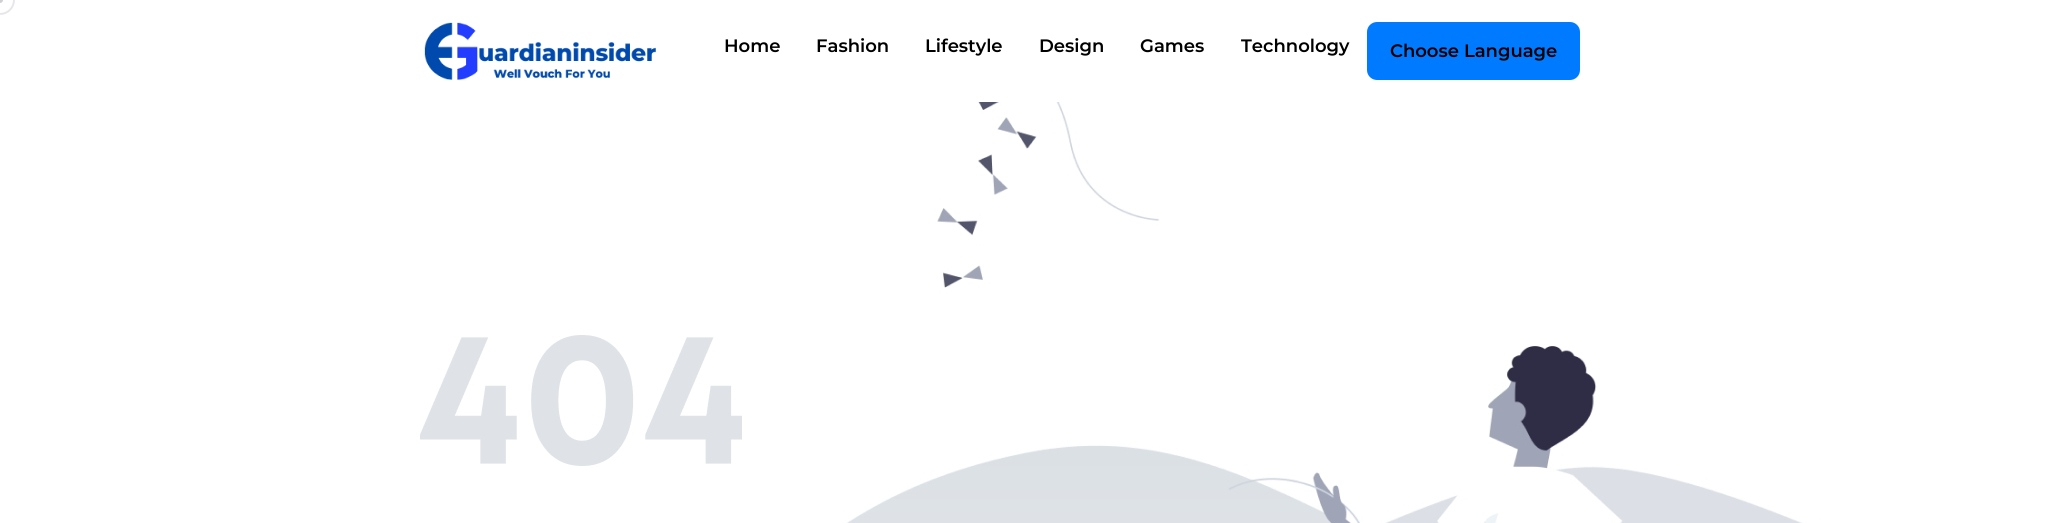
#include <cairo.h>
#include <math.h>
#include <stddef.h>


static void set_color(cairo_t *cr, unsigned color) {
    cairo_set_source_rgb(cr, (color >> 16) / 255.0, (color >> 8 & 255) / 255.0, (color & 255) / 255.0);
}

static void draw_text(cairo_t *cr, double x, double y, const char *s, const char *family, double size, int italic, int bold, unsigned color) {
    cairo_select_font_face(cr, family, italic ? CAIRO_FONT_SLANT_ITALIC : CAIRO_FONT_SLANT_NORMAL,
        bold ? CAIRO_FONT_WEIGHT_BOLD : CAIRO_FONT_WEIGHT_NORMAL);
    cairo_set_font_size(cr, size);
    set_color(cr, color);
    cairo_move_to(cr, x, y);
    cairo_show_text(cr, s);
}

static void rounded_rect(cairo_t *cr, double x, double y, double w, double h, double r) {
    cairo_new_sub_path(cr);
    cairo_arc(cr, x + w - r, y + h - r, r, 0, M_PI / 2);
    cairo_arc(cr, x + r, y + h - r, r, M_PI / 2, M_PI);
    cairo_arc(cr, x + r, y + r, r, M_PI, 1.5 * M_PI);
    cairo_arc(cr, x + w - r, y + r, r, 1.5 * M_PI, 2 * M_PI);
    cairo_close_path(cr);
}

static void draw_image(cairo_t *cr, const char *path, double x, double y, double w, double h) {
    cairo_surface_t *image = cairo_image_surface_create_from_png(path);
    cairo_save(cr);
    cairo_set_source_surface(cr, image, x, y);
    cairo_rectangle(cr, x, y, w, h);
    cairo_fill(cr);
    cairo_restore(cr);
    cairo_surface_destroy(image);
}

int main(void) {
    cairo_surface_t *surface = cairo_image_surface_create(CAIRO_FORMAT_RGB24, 2070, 523);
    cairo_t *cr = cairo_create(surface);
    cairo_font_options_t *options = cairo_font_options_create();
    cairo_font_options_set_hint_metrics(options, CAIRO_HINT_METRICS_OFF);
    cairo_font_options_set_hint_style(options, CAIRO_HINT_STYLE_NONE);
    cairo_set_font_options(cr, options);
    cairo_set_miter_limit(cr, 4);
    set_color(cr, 0xFFFFFF);
    cairo_paint(cr);
    cairo_arc(cr, 0, 0, 14, 0, 2 * M_PI);
    set_color(cr, 0xE7E7E9);
    cairo_stroke(cr);
    set_color(cr, 0xCED0D4);
    cairo_arc(cr, 0, 0, 3, 0, 2 * M_PI);
    cairo_fill(cr);
    draw_image(cr, "assets/img1.png", 424, 22, 232, 58);
    draw_text(cr, 724, 52, "Home", "Montserrat SemiBold", 18, 0, 0, 0x000000);
    draw_text(cr, 816, 52, "Fashion", "Montserrat SemiBold", 18, 0, 0, 0x000000);
    draw_text(cr, 925, 52, "Lifestyle", "Montserrat SemiBold", 18, 0, 0, 0x000000);
    draw_text(cr, 1039, 52, "Design", "Montserrat SemiBold", 18, 0, 0, 0x000000);
    draw_text(cr, 1140, 52, "Games", "Montserrat SemiBold", 18, 0, 0, 0x000000);
    draw_text(cr, 1241, 52, "Technology", "Montserrat SemiBold", 18, 0, 0, 0x000000);
    set_color(cr, 0x007BFF);
    rounded_rect(cr, 1367, 22, 213, 58, 10);
    cairo_fill(cr);
    draw_text(cr, 1390, 57, "Choose Language", "Montserrat SemiBold", 18, 0, 0, 0x000000);
    draw_image(cr, "assets/img2.png", 0, 102, 2070, 421);
    draw_image(cr, "assets/img3.png", 420, 335, 322, 131);
    cairo_surface_write_to_png(surface, "output.png");
    cairo_font_options_destroy(options);
    cairo_destroy(cr);
    cairo_surface_destroy(surface);
    return 0;
}
